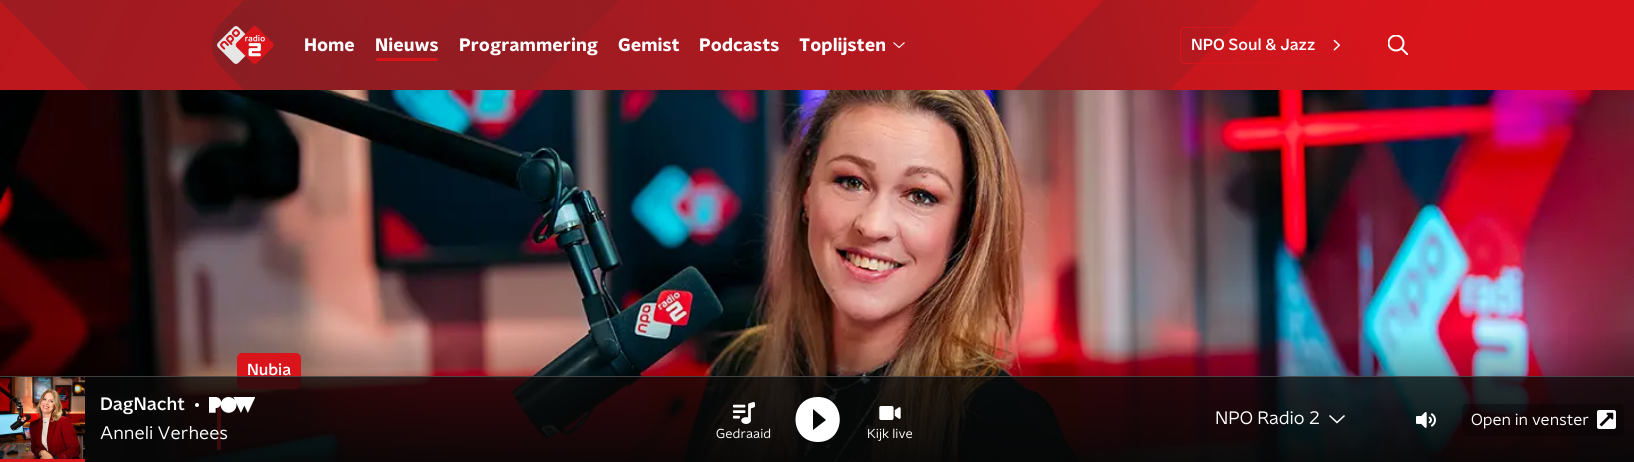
#include <cairo.h>
#include <math.h>
#include <stddef.h>


static void set_color(cairo_t *cr, unsigned color) {
    cairo_set_source_rgb(cr, (color >> 16) / 255.0, (color >> 8 & 255) / 255.0, (color & 255) / 255.0);
}

static void draw_text(cairo_t *cr, double x, double y, const char *s, const char *family, double size, int italic, int bold, unsigned color) {
    cairo_select_font_face(cr, family, italic ? CAIRO_FONT_SLANT_ITALIC : CAIRO_FONT_SLANT_NORMAL,
        bold ? CAIRO_FONT_WEIGHT_BOLD : CAIRO_FONT_WEIGHT_NORMAL);
    cairo_set_font_size(cr, size);
    set_color(cr, color);
    cairo_move_to(cr, x, y);
    cairo_show_text(cr, s);
}

static void fill_rect(cairo_t *cr, double x, double y, double w, double h, unsigned color) {
    set_color(cr, color);
    cairo_rectangle(cr, x, y, w, h);
    cairo_fill(cr);
}

static void rounded_rect(cairo_t *cr, double x, double y, double w, double h, double r) {
    cairo_new_sub_path(cr);
    cairo_arc(cr, x + w - r, y + h - r, r, 0, M_PI / 2);
    cairo_arc(cr, x + r, y + h - r, r, M_PI / 2, M_PI);
    cairo_arc(cr, x + r, y + r, r, M_PI, 1.5 * M_PI);
    cairo_arc(cr, x + w - r, y + r, r, 1.5 * M_PI, 2 * M_PI);
    cairo_close_path(cr);
}

static void draw_image(cairo_t *cr, const char *path, double x, double y, double w, double h) {
    cairo_surface_t *image = cairo_image_surface_create_from_png(path);
    cairo_save(cr);
    cairo_set_source_surface(cr, image, x, y);
    cairo_rectangle(cr, x, y, w, h);
    cairo_fill(cr);
    cairo_restore(cr);
    cairo_surface_destroy(image);
}

int main(void) {
    cairo_surface_t *surface = cairo_image_surface_create(CAIRO_FORMAT_RGB24, 1634, 462);
    cairo_t *cr = cairo_create(surface);
    cairo_font_options_t *options = cairo_font_options_create();
    cairo_font_options_set_hint_metrics(options, CAIRO_HINT_METRICS_OFF);
    cairo_font_options_set_hint_style(options, CAIRO_HINT_STYLE_NONE);
    cairo_set_font_options(cr, options);
    cairo_set_miter_limit(cr, 4);
    cairo_pattern_t *gradient;
    set_color(cr, 0xFFFFFF);
    cairo_paint(cr);
    gradient = cairo_pattern_create_linear(1505, 366, 129, -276);
    cairo_pattern_add_color_stop_rgba(gradient, 0.11, 0.851, 0.082, 0.106, 1);
    cairo_pattern_add_color_stop_rgba(gradient, 1, 0.612, 0.106, 0.129, 1);
    cairo_set_source(cr, gradient);
    cairo_pattern_destroy(gradient);
    cairo_rectangle(cr, 0, 0, 1634, 90);
    cairo_fill(cr);
    draw_image(cr, "assets/img1.png", 0, 0, 1371, 90);
    draw_image(cr, "assets/img2.png", 217, 26, 57, 38);
    draw_text(cr, 304, 51, "Home", "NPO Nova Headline", 18, 0, 1, 0xFFFFFF);
    draw_text(cr, 375, 51, "Nieuws", "NPO Nova Headline", 18, 0, 1, 0xFFFFFF);
    set_color(cr, 0xD9151B);
    rounded_rect(cr, 376, 58, 62, 3, 1.5);
    cairo_fill(cr);
    draw_text(cr, 459, 51, "Programmering", "NPO Nova Headline", 18, 0, 1, 0xFFFFFF);
    draw_text(cr, 618, 51, "Gemist", "NPO Nova Headline", 18, 0, 1, 0xFFFFFF);
    draw_text(cr, 699, 51, "Podcasts", "NPO Nova Headline", 18, 0, 1, 0xFFFFFF);
    draw_text(cr, 799, 51, "Toplijsten", "NPO Nova Headline", 18, 0, 1, 0xFFFFFF);
    cairo_new_path(cr);
    cairo_move_to(cr, 893.5, 42.5);
    cairo_line_to(cr, 899, 47.5);
    cairo_line_to(cr, 904.5, 42.5);
    cairo_set_line_width(cr, 1.1);
    cairo_stroke(cr);
    rounded_rect(cr, 1180.5, 27.5, 177, 36, 4.5);
    set_color(cr, 0xD9151B);
    cairo_set_line_width(cr, 1);
    cairo_stroke(cr);
    draw_text(cr, 1191, 50, "NPO Soul & Jazz", "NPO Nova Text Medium", 16, 0, 0, 0xFFFFFF);
    draw_image(cr, "assets/img3.png", 1333, 39, 7, 12);
    cairo_save(cr);
    cairo_rectangle(cr, 1388, 35, 20, 20);
    cairo_clip(cr);
    cairo_arc(cr, 1396, 43, 7.5, 0, 2 * M_PI);
    cairo_set_line_width(cr, 2);
    cairo_stroke(cr);
    cairo_new_path(cr);
    cairo_move_to(cr, 1401.5, 48.5);
    cairo_line_to(cr, 1407.5, 54.5);
    cairo_set_line_cap(cr, CAIRO_LINE_CAP_SQUARE);
    cairo_stroke(cr);
    cairo_restore(cr);
    draw_image(cr, "assets/img4.png", 0, 90, 1634, 372);
    set_color(cr, 0xD9151B);
    rounded_rect(cr, 237, 353, 64, 36, 5);
    cairo_fill(cr);
    draw_text(cr, 247, 375, "Nubia", "NPO Nova Text Medium", 16, 0, 0, 0xFFFFFF);
    set_color(cr, 0xD9151B);
    rounded_rect(cr, 217, 402, 4, 48, 2);
    cairo_fill(cr);
    cairo_set_source_rgba(cr, 0.035, 0.035, 0.035, 0.75);
    cairo_rectangle(cr, 0, 376, 1634, 86);
    cairo_fill(cr);
    cairo_set_source_rgba(cr, 0.373, 0.373, 0.373, 0.65);
    cairo_rectangle(cr, 0, 376, 1634, 1);
    cairo_fill(cr);
    draw_image(cr, "assets/img5.png", 0, 377, 85, 82);
    fill_rect(cr, 0, 459, 85, 3, 0xD9151B);
    draw_text(cr, 100, 410, "DagNacht", "NPO Nova Text Medium", 18, 0, 0, 0xFFFFFF);
    cairo_new_path(cr);
    cairo_arc(cr, 197, 405, 2, 0, 2 * M_PI);
    cairo_fill(cr);
    draw_image(cr, "assets/img6.png", 209, 397, 46, 16);
    draw_text(cr, 100, 439, "Anneli Verhees", "NPO Nova Text", 18, 0, 0, 0xFFFFFF);
    draw_text(cr, 1215, 424, "NPO Radio 2", "NPO Nova Text", 18, 0, 0, 0xFFFFFF);
    cairo_new_path(cr);
    cairo_move_to(cr, 1329.5, 415.5);
    cairo_line_to(cr, 1337, 422.5);
    cairo_line_to(cr, 1344.5, 415.5);
    cairo_set_line_width(cr, 1.5);
    cairo_stroke(cr);
    draw_image(cr, "assets/img7.png", 1416, 412, 20, 16);
    cairo_set_source_rgba(cr, 0, 0, 0, 0.35);
    rounded_rect(cr, 1462, 404, 162, 32, 5);
    cairo_fill(cr);
    draw_text(cr, 1471, 425, "Open in venster", "NPO Nova Text", 16, 0, 0, 0xFFFFFF);
    draw_image(cr, "assets/img8.png", 1597, 410, 19, 19);
    draw_image(cr, "assets/img9.png", 733, 402, 22, 22);
    draw_text(cr, 716, 438, "Gedraaid", "NPO Nova Text", 13, 0, 0, 0xFFFFFF);
    cairo_new_path(cr);
    cairo_move_to(cr, 818, 397);
    cairo_curve_to(cr, 788, 397, 788, 442, 818, 442);
    cairo_curve_to(cr, 847, 442, 847, 397, 818, 397);
    cairo_close_path(cr);
    cairo_move_to(cr, 813, 430);
    cairo_line_to(cr, 813, 409);
    cairo_line_to(cr, 826, 420);
    cairo_close_path(cr);
    cairo_fill(cr);
    draw_image(cr, "assets/img10.png", 879, 406, 22, 14);
    draw_text(cr, 867, 438, "Kijk live", "NPO Nova Text", 13, 0, 0, 0xFFFFFF);
    cairo_surface_write_to_png(surface, "output.png");
    cairo_font_options_destroy(options);
    cairo_destroy(cr);
    cairo_surface_destroy(surface);
    return 0;
}
